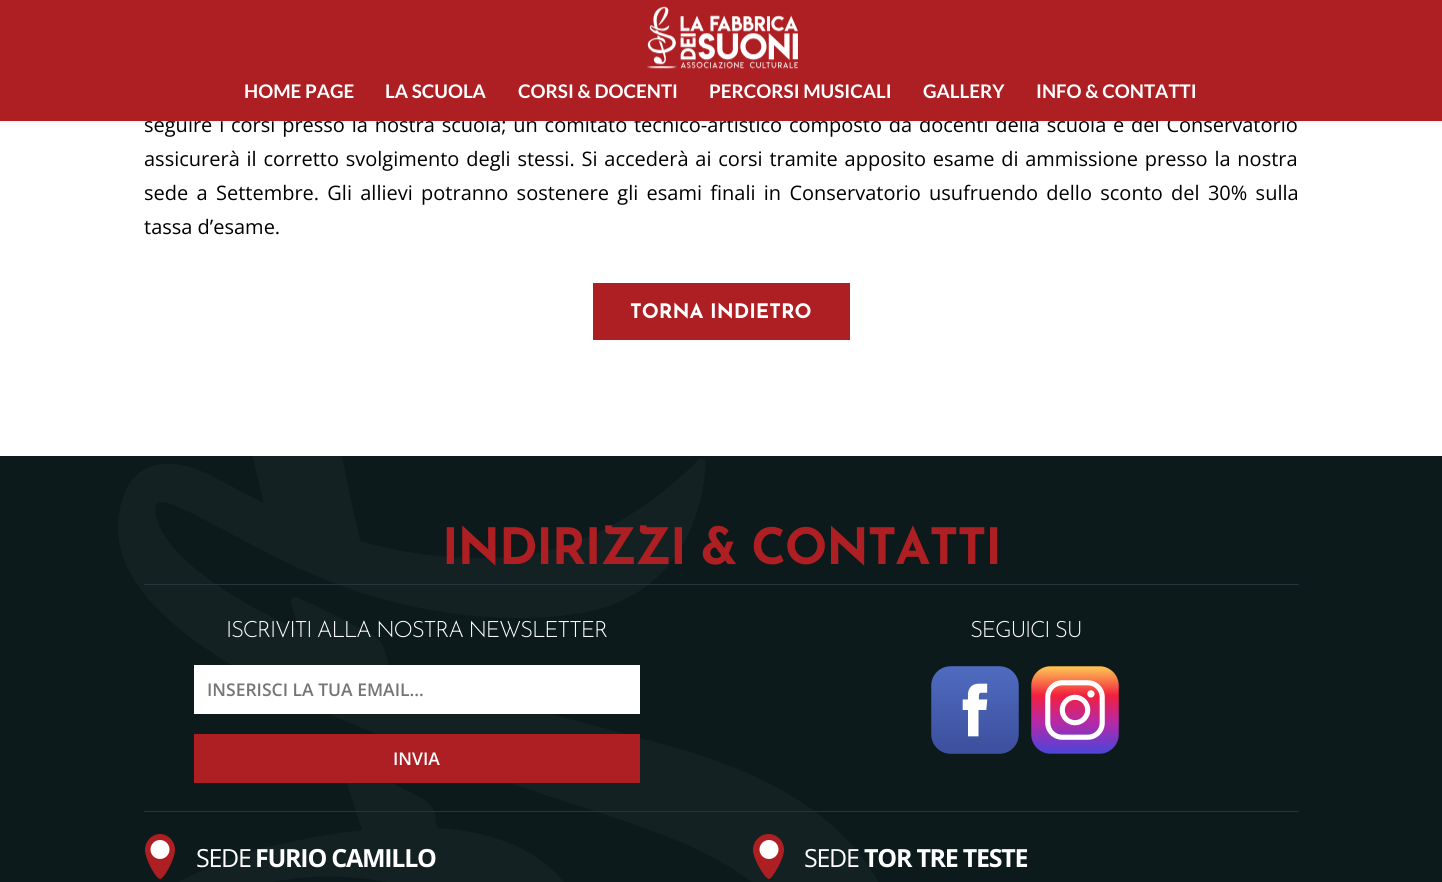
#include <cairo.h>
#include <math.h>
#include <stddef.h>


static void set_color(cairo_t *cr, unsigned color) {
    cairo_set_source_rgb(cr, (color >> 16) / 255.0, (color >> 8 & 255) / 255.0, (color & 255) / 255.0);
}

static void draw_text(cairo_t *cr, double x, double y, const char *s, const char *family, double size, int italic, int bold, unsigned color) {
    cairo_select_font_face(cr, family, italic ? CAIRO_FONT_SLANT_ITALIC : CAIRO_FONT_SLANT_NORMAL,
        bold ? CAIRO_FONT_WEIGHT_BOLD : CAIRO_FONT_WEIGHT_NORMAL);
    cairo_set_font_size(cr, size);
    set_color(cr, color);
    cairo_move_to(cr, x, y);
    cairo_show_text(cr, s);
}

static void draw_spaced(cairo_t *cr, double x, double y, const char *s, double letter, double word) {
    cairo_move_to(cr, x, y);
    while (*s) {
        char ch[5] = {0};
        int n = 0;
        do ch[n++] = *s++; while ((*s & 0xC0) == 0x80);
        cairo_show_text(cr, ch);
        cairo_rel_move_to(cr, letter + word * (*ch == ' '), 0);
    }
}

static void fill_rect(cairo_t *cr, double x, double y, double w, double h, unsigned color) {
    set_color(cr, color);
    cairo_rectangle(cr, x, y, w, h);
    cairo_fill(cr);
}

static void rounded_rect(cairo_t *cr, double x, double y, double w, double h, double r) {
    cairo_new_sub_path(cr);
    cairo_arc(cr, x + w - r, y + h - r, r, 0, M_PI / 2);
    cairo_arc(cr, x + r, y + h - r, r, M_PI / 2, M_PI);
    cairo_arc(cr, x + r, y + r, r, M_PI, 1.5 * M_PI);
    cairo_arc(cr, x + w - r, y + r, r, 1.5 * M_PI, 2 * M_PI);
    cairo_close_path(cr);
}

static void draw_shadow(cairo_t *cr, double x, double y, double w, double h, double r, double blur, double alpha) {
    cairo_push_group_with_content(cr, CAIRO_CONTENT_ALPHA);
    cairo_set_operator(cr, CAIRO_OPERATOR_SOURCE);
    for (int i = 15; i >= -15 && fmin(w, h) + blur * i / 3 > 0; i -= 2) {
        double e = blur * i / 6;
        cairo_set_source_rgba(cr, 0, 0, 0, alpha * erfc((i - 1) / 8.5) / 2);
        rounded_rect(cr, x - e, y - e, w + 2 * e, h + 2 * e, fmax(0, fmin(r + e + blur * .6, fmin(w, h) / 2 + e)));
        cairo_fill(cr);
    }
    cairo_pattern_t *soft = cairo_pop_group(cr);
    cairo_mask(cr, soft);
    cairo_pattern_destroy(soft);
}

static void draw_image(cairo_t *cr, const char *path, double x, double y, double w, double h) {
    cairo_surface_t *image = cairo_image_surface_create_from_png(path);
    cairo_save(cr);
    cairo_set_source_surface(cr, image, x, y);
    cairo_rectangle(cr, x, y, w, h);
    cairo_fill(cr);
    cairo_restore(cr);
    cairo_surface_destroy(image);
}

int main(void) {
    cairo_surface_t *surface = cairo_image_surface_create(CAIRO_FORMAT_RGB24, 1442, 882);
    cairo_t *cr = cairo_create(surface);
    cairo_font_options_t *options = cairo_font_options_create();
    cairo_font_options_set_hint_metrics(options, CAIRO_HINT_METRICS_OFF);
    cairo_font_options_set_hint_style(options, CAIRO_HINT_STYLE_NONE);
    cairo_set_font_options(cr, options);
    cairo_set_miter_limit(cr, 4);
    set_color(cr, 0xFFFFFF);
    cairo_paint(cr);
    set_color(cr, 0x000000);
    draw_shadow(cr, 0, 0, 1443, 121, 0, 4.5, 0.1);
    cairo_select_font_face(cr, "Open Sans", CAIRO_FONT_SLANT_NORMAL, CAIRO_FONT_WEIGHT_NORMAL);
    cairo_set_font_size(cr, 20);
    set_color(cr, 0x000000);
    draw_spaced(cr, 144, 132, "seguire i corsi presso la nostra scuola; un comitato tecnico-artistico composto da docenti della scuola e del Conservatorio", 0, 1.6);
    fill_rect(cr, 0, 0, 1442, 121, 0xAE1F23);
    draw_image(cr, "assets/img1.png", 647, 6, 151, 63);
    draw_text(cr, 244, 98, "HOME PAGE", "Lato", 18.75, 0, 1, 0xFFFFFF);
    draw_text(cr, 385, 98, "LA SCUOLA", "Lato", 18.75, 0, 1, 0xFFFFFF);
    draw_text(cr, 518, 98, "CORSI & DOCENTI", "Lato", 18.75, 0, 1, 0xFFFFFF);
    draw_text(cr, 709, 98, "PERCORSI MUSICALI", "Lato", 18.75, 0, 1, 0xFFFFFF);
    draw_text(cr, 923, 98, "GALLERY", "Lato", 18.75, 0, 1, 0xFFFFFF);
    draw_text(cr, 1036, 98, "INFO & CONTATTI", "Lato", 18.75, 0, 1, 0xFFFFFF);
    cairo_select_font_face(cr, "Open Sans", CAIRO_FONT_SLANT_NORMAL, CAIRO_FONT_WEIGHT_NORMAL);
    cairo_set_font_size(cr, 20);
    set_color(cr, 0x000000);
    draw_spaced(cr, 144, 166, "assicurerà il corretto svolgimento degli stessi. Si accederà ai corsi tramite apposito esame di ammissione presso la nostra", 0, 1.6);
    draw_spaced(cr, 144, 200, "sede a Settembre. Gli allievi potranno sostenere gli esami finali in Conservatorio usufruendo dello sconto del 30% sulla", 0, 3.1);
    draw_text(cr, 144, 234, "tassa d’esame.", "Open Sans", 20, 0, 0, 0x000000);
    fill_rect(cr, 593, 283, 257, 57, 0xAE1F23);
    draw_text(cr, 630, 318, "TORNA INDIETRO", "Josefin Sans", 20, 0, 1, 0xFFFFFF);
    fill_rect(cr, 0, 456, 1442, 426, 0x0C1A1B);
    draw_image(cr, "assets/img2.png", 118, 456, 760, 426);
    fill_rect(cr, 144, 584, 1155, 1, 0x2C323A);
    cairo_set_font_size(cr, 50);
    set_color(cr, 0xAE1F23);
    draw_spaced(cr, 442, 564, "INDIRIZZI & CONTATTI", -1.25, 0);
    cairo_select_font_face(cr, "Josefin Sans Light", CAIRO_FONT_SLANT_NORMAL, CAIRO_FONT_WEIGHT_NORMAL);
    cairo_set_font_size(cr, 22.5);
    set_color(cr, 0xFFFFFF);
    draw_spaced(cr, 226, 637, "ISCRIVITI ALLA NOSTRA NEWSLETTER", -1.25, 0);
    fill_rect(cr, 194, 665, 446, 49, 0xFFFFFF);
    draw_text(cr, 207, 696, "INSERISCI LA TUA EMAIL...", "Open Sans SemiBold", 17.5, 0, 0, 0x757575);
    fill_rect(cr, 194, 734, 446, 49, 0xAE1F23);
    draw_text(cr, 393, 765, "INVIA", "Open Sans SemiBold", 17.5, 0, 0, 0xFFFFFF);
    cairo_select_font_face(cr, "Josefin Sans Light", CAIRO_FONT_SLANT_NORMAL, CAIRO_FONT_WEIGHT_NORMAL);
    cairo_set_font_size(cr, 22.5);
    draw_spaced(cr, 970, 637, "SEGUICI SU", -1.25, 0);
    draw_image(cr, "assets/img3.png", 931, 666, 88, 88);
    draw_image(cr, "assets/img4.png", 1031, 666, 88, 88);
    fill_rect(cr, 144, 811, 1155, 1, 0x2C323A);
    set_color(cr, 0xAE1F23);
    cairo_set_fill_rule(cr, CAIRO_FILL_RULE_EVEN_ODD);
    cairo_new_path(cr);
    cairo_move_to(cr, 160, 834);
    cairo_curve_to(cr, 168, 834, 175, 841, 175, 850);
    cairo_curve_to(cr, 175, 859, 164, 879, 160, 879);
    cairo_curve_to(cr, 156, 879, 145, 859, 145, 850);
    cairo_curve_to(cr, 145, 841, 152, 834, 160, 834);
    cairo_close_path(cr);
    cairo_fill(cr);
    set_color(cr, 0xFFFFFF);
    cairo_arc(cr, 160, 849.5, 9.5, 0, 2 * M_PI);
    cairo_fill(cr);
    cairo_select_font_face(cr, "Open Sans", CAIRO_FONT_SLANT_NORMAL, CAIRO_FONT_WEIGHT_NORMAL);
    cairo_set_font_size(cr, 25);
    draw_spaced(cr, 196, 867, "SEDE", -1.25, 0);
    cairo_select_font_face(cr, "Open Sans", CAIRO_FONT_SLANT_NORMAL, CAIRO_FONT_WEIGHT_BOLD);
    draw_spaced(cr, 255, 867, "FURIO CAMILLO", -1.25, 0);
    set_color(cr, 0xAE1F23);
    cairo_new_path(cr);
    cairo_move_to(cr, 769, 834);
    cairo_curve_to(cr, 777, 834, 784, 841, 784, 850);
    cairo_curve_to(cr, 784, 859, 772, 879, 769, 879);
    cairo_curve_to(cr, 765, 879, 753, 859, 753, 850);
    cairo_curve_to(cr, 753, 841, 760, 834, 769, 834);
    cairo_close_path(cr);
    cairo_fill(cr);
    set_color(cr, 0xFFFFFF);
    cairo_arc(cr, 769, 849.5, 9.5, 0, 2 * M_PI);
    cairo_fill(cr);
    cairo_select_font_face(cr, "Open Sans", CAIRO_FONT_SLANT_NORMAL, CAIRO_FONT_WEIGHT_NORMAL);
    draw_spaced(cr, 804, 867, "SEDE", -1.25, 0);
    cairo_select_font_face(cr, "Open Sans", CAIRO_FONT_SLANT_NORMAL, CAIRO_FONT_WEIGHT_BOLD);
    draw_spaced(cr, 864, 867, "TOR TRE TESTE", -1.25, 0);
    cairo_surface_write_to_png(surface, "output.png");
    cairo_font_options_destroy(options);
    cairo_destroy(cr);
    cairo_surface_destroy(surface);
    return 0;
}
